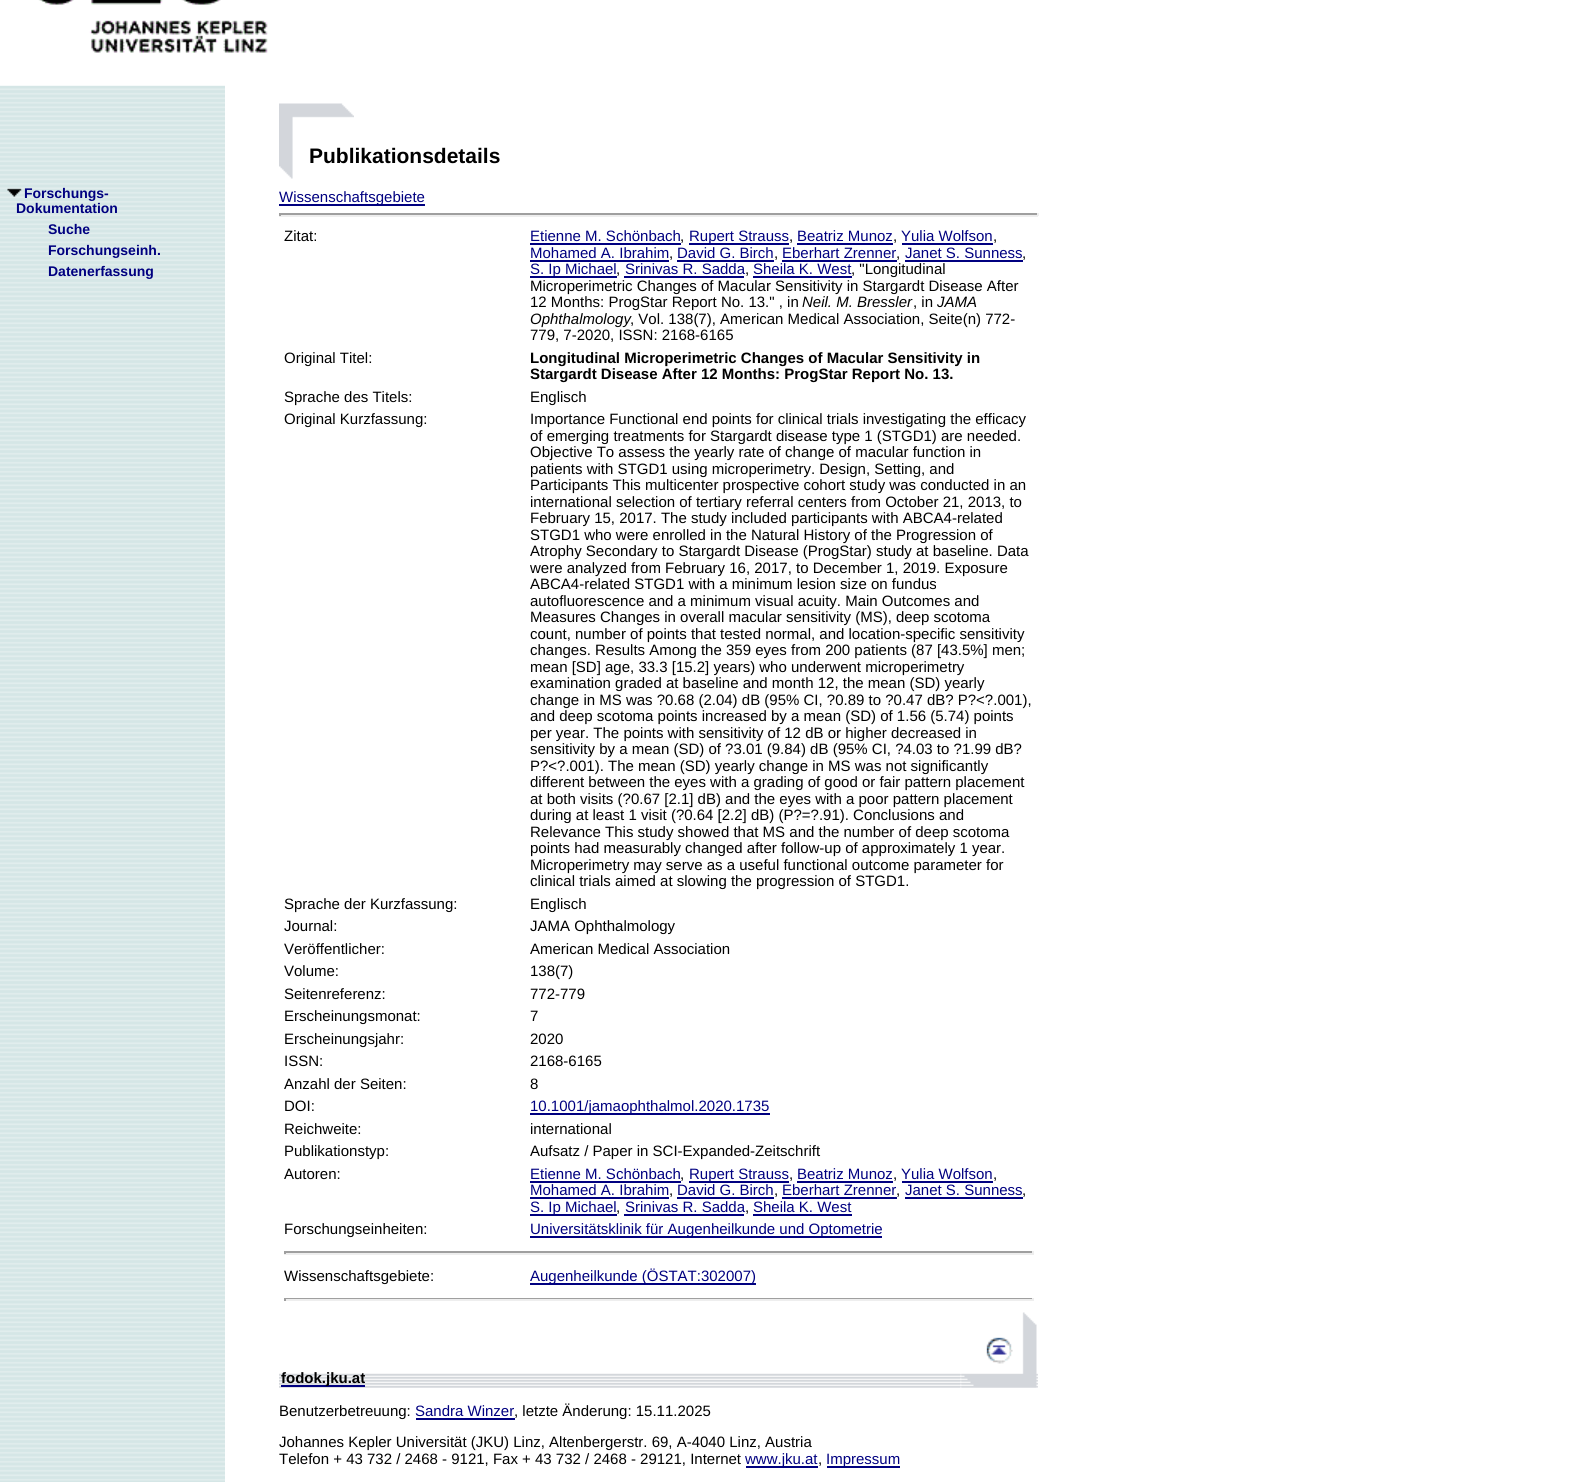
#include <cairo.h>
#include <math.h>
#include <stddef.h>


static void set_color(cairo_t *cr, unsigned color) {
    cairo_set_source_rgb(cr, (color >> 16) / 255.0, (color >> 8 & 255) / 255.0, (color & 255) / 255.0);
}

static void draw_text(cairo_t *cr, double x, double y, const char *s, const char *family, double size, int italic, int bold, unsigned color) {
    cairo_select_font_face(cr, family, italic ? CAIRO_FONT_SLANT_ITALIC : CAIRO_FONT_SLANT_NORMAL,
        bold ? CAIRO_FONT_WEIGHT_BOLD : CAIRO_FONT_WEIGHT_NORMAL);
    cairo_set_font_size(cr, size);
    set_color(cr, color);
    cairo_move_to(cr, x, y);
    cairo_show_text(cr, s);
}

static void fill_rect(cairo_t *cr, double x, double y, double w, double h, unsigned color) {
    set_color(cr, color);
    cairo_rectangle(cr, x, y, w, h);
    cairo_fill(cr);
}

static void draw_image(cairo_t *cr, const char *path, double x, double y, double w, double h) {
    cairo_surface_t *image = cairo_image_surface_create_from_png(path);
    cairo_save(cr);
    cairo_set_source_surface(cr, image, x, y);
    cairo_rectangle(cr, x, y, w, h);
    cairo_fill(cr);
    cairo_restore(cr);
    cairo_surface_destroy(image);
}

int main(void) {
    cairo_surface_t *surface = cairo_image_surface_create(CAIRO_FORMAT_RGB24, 1575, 1482);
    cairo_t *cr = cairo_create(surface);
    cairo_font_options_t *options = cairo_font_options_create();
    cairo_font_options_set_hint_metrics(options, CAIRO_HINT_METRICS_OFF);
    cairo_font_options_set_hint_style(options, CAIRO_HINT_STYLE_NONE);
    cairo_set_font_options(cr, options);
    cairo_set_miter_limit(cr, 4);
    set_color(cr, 0xFFFFFF);
    cairo_paint(cr);
    draw_image(cr, "assets/img2.png", 0, 85, 225, 1397);
    draw_image(cr, "assets/img1.png", 0, 0, 268, 86);
    draw_image(cr, "assets/img3.png", 7, 188, 15, 9);
    draw_text(cr, 24, 198, "Forschungs-", "Liberation Sans", 14, 0, 1, 0x000080);
    draw_text(cr, 16, 213, "Dokumentation", "Liberation Sans", 14, 0, 1, 0x000080);
    draw_text(cr, 48, 234, "Suche", "Liberation Sans", 14, 0, 1, 0x000080);
    draw_text(cr, 48, 255, "Forschungseinh.", "Liberation Sans", 14, 0, 1, 0x000080);
    draw_text(cr, 48, 276, "Datenerfassung", "Liberation Sans", 14, 0, 1, 0x000080);
    draw_image(cr, "assets/img4.png", 279, 103, 75, 76);
    draw_text(cr, 309, 163, "Publikationsdetails", "Liberation Sans", 21, 0, 1, 0x000000);
    fill_rect(cr, 279, 204, 146, 2, 0x000080);
    draw_text(cr, 279, 202, "Wissenschaftsgebiete", "Liberation Sans", 15, 0, 0, 0x000080);
    fill_rect(cr, 279, 213, 759, 2, 0x9F9F9F);
    fill_rect(cr, 1037, 213, 2, 3, 0xEEEEEE);
    fill_rect(cr, 279, 215, 759, 2, 0xEEEEEE);
    fill_rect(cr, 279, 213, 2, 3, 0x9F9F9F);
    draw_text(cr, 284, 241, "Zitat:", "Liberation Sans", 15, 0, 0, 0x000000);
    draw_text(cr, 530, 241, "Etienne M. Schönbach", "Liberation Sans", 15, 0, 0, 0x000080);
    fill_rect(cr, 530, 243, 151, 2, 0x000080);
    draw_text(cr, 680, 241, ",", "Liberation Sans", 15, 0, 0, 0x000000);
    fill_rect(cr, 689, 243, 100, 2, 0x000080);
    draw_text(cr, 689, 241, "Rupert Strauss", "Liberation Sans", 15, 0, 0, 0x000080);
    draw_text(cr, 789, 241, ",", "Liberation Sans", 15, 0, 0, 0x000000);
    draw_text(cr, 797, 241, "Beatriz Munoz", "Liberation Sans", 15, 0, 0, 0x000080);
    fill_rect(cr, 797, 243, 96, 2, 0x000080);
    draw_text(cr, 893, 241, ",", "Liberation Sans", 15, 0, 0, 0x000000);
    draw_text(cr, 901, 241, "Yulia Wolfson", "Liberation Sans", 15, 0, 0, 0x000080);
    fill_rect(cr, 902, 243, 91, 2, 0x000080);
    draw_text(cr, 993, 241, ",", "Liberation Sans", 15, 0, 0, 0x000000);
    draw_text(cr, 530, 258, "Mohamed A. Ibrahim", "Liberation Sans", 15, 0, 0, 0x000080);
    fill_rect(cr, 530, 260, 139, 2, 0x000080);
    draw_text(cr, 669, 258, ",", "Liberation Sans", 15, 0, 0, 0x000000);
    draw_text(cr, 677, 258, "David G. Birch", "Liberation Sans", 15, 0, 0, 0x000080);
    fill_rect(cr, 677, 260, 97, 2, 0x000080);
    draw_text(cr, 774, 258, ",", "Liberation Sans", 15, 0, 0, 0x000000);
    draw_text(cr, 782, 258, "Eberhart Zrenner", "Liberation Sans", 15, 0, 0, 0x000080);
    fill_rect(cr, 782, 260, 115, 2, 0x000080);
    draw_text(cr, 896, 258, ",", "Liberation Sans", 15, 0, 0, 0x000000);
    draw_text(cr, 905, 258, "Janet S. Sunness", "Liberation Sans", 15, 0, 0, 0x000080);
    fill_rect(cr, 905, 260, 118, 2, 0x000080);
    draw_text(cr, 1022, 258, ",", "Liberation Sans", 15, 0, 0, 0x000000);
    fill_rect(cr, 530, 276, 87, 2, 0x000080);
    draw_text(cr, 530, 274, "S. Ip Michael", "Liberation Sans", 15, 0, 0, 0x000080);
    draw_text(cr, 616, 274, ",", "Liberation Sans", 15, 0, 0, 0x000000);
    draw_text(cr, 625, 274, "Srinivas R. Sadda", "Liberation Sans", 15, 0, 0, 0x000080);
    fill_rect(cr, 624, 276, 120, 2, 0x000080);
    draw_text(cr, 745, 274, ",", "Liberation Sans", 15, 0, 0, 0x000000);
    draw_text(cr, 753, 274, "Sheila K. West", "Liberation Sans", 15, 0, 0, 0x000080);
    fill_rect(cr, 753, 276, 99, 2, 0x000080);
    draw_text(cr, 851, 274, ", \"Longitudinal", "Liberation Sans", 15, 0, 0, 0x000000);
    draw_text(cr, 530, 291, "Microperimetric Changes of Macular Sensitivity in Stargardt Disease After", "Liberation Sans", 15, 0, 0, 0x000000);
    draw_text(cr, 530, 307, "12 Months: ProgStar Report No. 13.\" , in", "Liberation Sans", 15, 0, 0, 0x000000);
    draw_text(cr, 802, 307, "Neil. M. Bressler", "Liberation Sans", 15, 1, 0, 0x000000);
    draw_text(cr, 913, 307, ", in", "Liberation Sans", 15, 0, 0, 0x000000);
    draw_text(cr, 937, 307, "JAMA", "Liberation Sans", 15, 1, 0, 0x000000);
    draw_text(cr, 530, 324, "Ophthalmology", "Liberation Sans", 15, 1, 0, 0x000000);
    draw_text(cr, 630, 324, ", Vol. 138(7), American Medical Association, Seite(n) 772-", "Liberation Sans", 15, 0, 0, 0x000000);
    draw_text(cr, 530, 340, "779, 7-2020, ISSN: 2168-6165", "Liberation Sans", 15, 0, 0, 0x000000);
    draw_text(cr, 284, 363, "Original Titel:", "Liberation Sans", 15, 0, 0, 0x000000);
    draw_text(cr, 530, 363, "Longitudinal Microperimetric Changes of Macular Sensitivity in", "Liberation Sans", 15, 0, 1, 0x000000);
    draw_text(cr, 530, 379, "Stargardt Disease After 12 Months: ProgStar Report No. 13.", "Liberation Sans", 15, 0, 1, 0x000000);
    draw_text(cr, 284, 402, "Sprache des Titels:", "Liberation Sans", 15, 0, 0, 0x000000);
    draw_text(cr, 530, 402, "Englisch", "Liberation Sans", 15, 0, 0, 0x000000);
    draw_text(cr, 284, 424, "Original Kurzfassung:", "Liberation Sans", 15, 0, 0, 0x000000);
    draw_text(cr, 530, 424, "Importance Functional end points for clinical trials investigating the efficacy", "Liberation Sans", 15, 0, 0, 0x000000);
    draw_text(cr, 530, 441, "of emerging treatments for Stargardt disease type 1 (STGD1) are needed.", "Liberation Sans", 15, 0, 0, 0x000000);
    draw_text(cr, 530, 457, "Objective To assess the yearly rate of change of macular function in", "Liberation Sans", 15, 0, 0, 0x000000);
    draw_text(cr, 530, 474, "patients with STGD1 using microperimetry. Design, Setting, and", "Liberation Sans", 15, 0, 0, 0x000000);
    draw_text(cr, 530, 490, "Participants This multicenter prospective cohort study was conducted in an", "Liberation Sans", 15, 0, 0, 0x000000);
    draw_text(cr, 530, 507, "international selection of tertiary referral centers from October 21, 2013, to", "Liberation Sans", 15, 0, 0, 0x000000);
    draw_text(cr, 530, 523, "February 15, 2017. The study included participants with ABCA4-related", "Liberation Sans", 15, 0, 0, 0x000000);
    draw_text(cr, 530, 540, "STGD1 who were enrolled in the Natural History of the Progression of", "Liberation Sans", 15, 0, 0, 0x000000);
    draw_text(cr, 530, 556, "Atrophy Secondary to Stargardt Disease (ProgStar) study at baseline. Data", "Liberation Sans", 15, 0, 0, 0x000000);
    draw_text(cr, 530, 573, "were analyzed from February 16, 2017, to December 1, 2019. Exposure", "Liberation Sans", 15, 0, 0, 0x000000);
    draw_text(cr, 530, 589, "ABCA4-related STGD1 with a minimum lesion size on fundus", "Liberation Sans", 15, 0, 0, 0x000000);
    draw_text(cr, 530, 606, "autofluorescence and a minimum visual acuity. Main Outcomes and", "Liberation Sans", 15, 0, 0, 0x000000);
    draw_text(cr, 530, 622, "Measures Changes in overall macular sensitivity (MS), deep scotoma", "Liberation Sans", 15, 0, 0, 0x000000);
    draw_text(cr, 530, 639, "count, number of points that tested normal, and location-specific sensitivity", "Liberation Sans", 15, 0, 0, 0x000000);
    draw_text(cr, 530, 655, "changes. Results Among the 359 eyes from 200 patients (87 [43.5%] men;", "Liberation Sans", 15, 0, 0, 0x000000);
    draw_text(cr, 530, 672, "mean [SD] age, 33.3 [15.2] years) who underwent microperimetry", "Liberation Sans", 15, 0, 0, 0x000000);
    draw_text(cr, 530, 688, "examination graded at baseline and month 12, the mean (SD) yearly", "Liberation Sans", 15, 0, 0, 0x000000);
    draw_text(cr, 530, 705, "change in MS was ?0.68 (2.04) dB (95% CI, ?0.89 to ?0.47 dB? P?<?.001),", "Liberation Sans", 15, 0, 0, 0x000000);
    draw_text(cr, 530, 721, "and deep scotoma points increased by a mean (SD) of 1.56 (5.74) points", "Liberation Sans", 15, 0, 0, 0x000000);
    draw_text(cr, 530, 738, "per year. The points with sensitivity of 12 dB or higher decreased in", "Liberation Sans", 15, 0, 0, 0x000000);
    draw_text(cr, 530, 754, "sensitivity by a mean (SD) of ?3.01 (9.84) dB (95% CI, ?4.03 to ?1.99 dB?", "Liberation Sans", 15, 0, 0, 0x000000);
    draw_text(cr, 530, 771, "P?<?.001). The mean (SD) yearly change in MS was not significantly", "Liberation Sans", 15, 0, 0, 0x000000);
    draw_text(cr, 530, 787, "different between the eyes with a grading of good or fair pattern placement", "Liberation Sans", 15, 0, 0, 0x000000);
    draw_text(cr, 530, 804, "at both visits (?0.67 [2.1] dB) and the eyes with a poor pattern placement", "Liberation Sans", 15, 0, 0, 0x000000);
    draw_text(cr, 530, 820, "during at least 1 visit (?0.64 [2.2] dB) (P?=?.91). Conclusions and", "Liberation Sans", 15, 0, 0, 0x000000);
    draw_text(cr, 530, 837, "Relevance This study showed that MS and the number of deep scotoma", "Liberation Sans", 15, 0, 0, 0x000000);
    draw_text(cr, 530, 853, "points had measurably changed after follow-up of approximately 1 year.", "Liberation Sans", 15, 0, 0, 0x000000);
    draw_text(cr, 530, 870, "Microperimetry may serve as a useful functional outcome parameter for", "Liberation Sans", 15, 0, 0, 0x000000);
    draw_text(cr, 530, 886, "clinical trials aimed at slowing the progression of STGD1.", "Liberation Sans", 15, 0, 0, 0x000000);
    draw_text(cr, 284, 909, "Sprache der Kurzfassung:", "Liberation Sans", 15, 0, 0, 0x000000);
    draw_text(cr, 530, 909, "Englisch", "Liberation Sans", 15, 0, 0, 0x000000);
    draw_text(cr, 284, 931, "Journal:", "Liberation Sans", 15, 0, 0, 0x000000);
    draw_text(cr, 530, 931, "JAMA Ophthalmology", "Liberation Sans", 15, 0, 0, 0x000000);
    draw_text(cr, 284, 954, "Veröffentlicher:", "Liberation Sans", 15, 0, 0, 0x000000);
    draw_text(cr, 530, 954, "American Medical Association", "Liberation Sans", 15, 0, 0, 0x000000);
    draw_text(cr, 284, 976, "Volume:", "Liberation Sans", 15, 0, 0, 0x000000);
    draw_text(cr, 530, 976, "138(7)", "Liberation Sans", 15, 0, 0, 0x000000);
    draw_text(cr, 284, 999, "Seitenreferenz:", "Liberation Sans", 15, 0, 0, 0x000000);
    draw_text(cr, 530, 999, "772-779", "Liberation Sans", 15, 0, 0, 0x000000);
    draw_text(cr, 284, 1021, "Erscheinungsmonat:", "Liberation Sans", 15, 0, 0, 0x000000);
    draw_text(cr, 530, 1021, "7", "Liberation Sans", 15, 0, 0, 0x000000);
    draw_text(cr, 284, 1044, "Erscheinungsjahr:", "Liberation Sans", 15, 0, 0, 0x000000);
    draw_text(cr, 530, 1044, "2020", "Liberation Sans", 15, 0, 0, 0x000000);
    draw_text(cr, 284, 1066, "ISSN:", "Liberation Sans", 15, 0, 0, 0x000000);
    draw_text(cr, 530, 1066, "2168-6165", "Liberation Sans", 15, 0, 0, 0x000000);
    draw_text(cr, 284, 1089, "Anzahl der Seiten:", "Liberation Sans", 15, 0, 0, 0x000000);
    draw_text(cr, 530, 1089, "8", "Liberation Sans", 15, 0, 0, 0x000000);
    draw_text(cr, 284, 1111, "DOI:", "Liberation Sans", 15, 0, 0, 0x000000);
    fill_rect(cr, 530, 1113, 240, 2, 0x000080);
    draw_text(cr, 530, 1111, "10.1001/jamaophthalmol.2020.1735", "Liberation Sans", 15, 0, 0, 0x000080);
    draw_text(cr, 284, 1134, "Reichweite:", "Liberation Sans", 15, 0, 0, 0x000000);
    draw_text(cr, 530, 1134, "international", "Liberation Sans", 15, 0, 0, 0x000000);
    draw_text(cr, 284, 1156, "Publikationstyp:", "Liberation Sans", 15, 0, 0, 0x000000);
    draw_text(cr, 530, 1156, "Aufsatz / Paper in SCI-Expanded-Zeitschrift", "Liberation Sans", 15, 0, 0, 0x000000);
    draw_text(cr, 284, 1179, "Autoren:", "Liberation Sans", 15, 0, 0, 0x000000);
    draw_text(cr, 530, 1179, "Etienne M. Schönbach", "Liberation Sans", 15, 0, 0, 0x000080);
    fill_rect(cr, 530, 1181, 151, 2, 0x000080);
    draw_text(cr, 680, 1179, ",", "Liberation Sans", 15, 0, 0, 0x000000);
    fill_rect(cr, 689, 1181, 100, 2, 0x000080);
    draw_text(cr, 689, 1179, "Rupert Strauss", "Liberation Sans", 15, 0, 0, 0x000080);
    draw_text(cr, 789, 1179, ",", "Liberation Sans", 15, 0, 0, 0x000000);
    draw_text(cr, 797, 1179, "Beatriz Munoz", "Liberation Sans", 15, 0, 0, 0x000080);
    fill_rect(cr, 797, 1181, 96, 2, 0x000080);
    draw_text(cr, 893, 1179, ",", "Liberation Sans", 15, 0, 0, 0x000000);
    draw_text(cr, 901, 1179, "Yulia Wolfson", "Liberation Sans", 15, 0, 0, 0x000080);
    fill_rect(cr, 902, 1181, 91, 2, 0x000080);
    draw_text(cr, 993, 1179, ",", "Liberation Sans", 15, 0, 0, 0x000000);
    draw_text(cr, 530, 1195, "Mohamed A. Ibrahim", "Liberation Sans", 15, 0, 0, 0x000080);
    fill_rect(cr, 530, 1197, 139, 2, 0x000080);
    draw_text(cr, 669, 1195, ",", "Liberation Sans", 15, 0, 0, 0x000000);
    draw_text(cr, 677, 1195, "David G. Birch", "Liberation Sans", 15, 0, 0, 0x000080);
    fill_rect(cr, 677, 1197, 97, 2, 0x000080);
    draw_text(cr, 774, 1195, ",", "Liberation Sans", 15, 0, 0, 0x000000);
    draw_text(cr, 782, 1195, "Eberhart Zrenner", "Liberation Sans", 15, 0, 0, 0x000080);
    fill_rect(cr, 782, 1197, 115, 2, 0x000080);
    draw_text(cr, 896, 1195, ",", "Liberation Sans", 15, 0, 0, 0x000000);
    draw_text(cr, 905, 1195, "Janet S. Sunness", "Liberation Sans", 15, 0, 0, 0x000080);
    fill_rect(cr, 905, 1197, 118, 2, 0x000080);
    draw_text(cr, 1022, 1195, ",", "Liberation Sans", 15, 0, 0, 0x000000);
    fill_rect(cr, 530, 1214, 87, 2, 0x000080);
    draw_text(cr, 530, 1212, "S. Ip Michael", "Liberation Sans", 15, 0, 0, 0x000080);
    draw_text(cr, 616, 1212, ",", "Liberation Sans", 15, 0, 0, 0x000000);
    draw_text(cr, 625, 1212, "Srinivas R. Sadda", "Liberation Sans", 15, 0, 0, 0x000080);
    fill_rect(cr, 624, 1214, 120, 2, 0x000080);
    draw_text(cr, 745, 1212, ",", "Liberation Sans", 15, 0, 0, 0x000000);
    draw_text(cr, 753, 1212, "Sheila K. West", "Liberation Sans", 15, 0, 0, 0x000080);
    fill_rect(cr, 753, 1214, 99, 2, 0x000080);
    draw_text(cr, 284, 1234, "Forschungseinheiten:", "Liberation Sans", 15, 0, 0, 0x000000);
    fill_rect(cr, 530, 1236, 352, 2, 0x000080);
    draw_text(cr, 530, 1234, "Universitätsklinik für Augenheilkunde und Optometrie", "Liberation Sans", 15, 0, 0, 0x000080);
    fill_rect(cr, 284, 1251, 750, 2, 0x9F9F9F);
    fill_rect(cr, 1032, 1251, 2, 3, 0xEEEEEE);
    fill_rect(cr, 284, 1253, 750, 2, 0xEEEEEE);
    fill_rect(cr, 284, 1251, 2, 3, 0x9F9F9F);
    draw_text(cr, 284, 1281, "Wissenschaftsgebiete:", "Liberation Sans", 15, 0, 0, 0x000000);
    fill_rect(cr, 530, 1283, 226, 2, 0x000080);
    draw_text(cr, 530, 1281, "Augenheilkunde (ÖSTAT:302007)", "Liberation Sans", 15, 0, 0, 0x000080);
    fill_rect(cr, 284, 1298, 750, 1, 0x9F9F9F);
    fill_rect(cr, 1032, 1298, 2, 3, 0xEEEEEE);
    fill_rect(cr, 284, 1299, 750, 2, 0xEEEEEE);
    fill_rect(cr, 284, 1298, 2, 3, 0x9F9F9F);
    draw_image(cr, "assets/img5.png", 279, 1373, 759, 15);
    draw_image(cr, "assets/img6.png", 279, 1373, 681, 15);
    fill_rect(cr, 281, 1385, 84, 2, 0x000080);
    draw_text(cr, 281, 1383, "fodok.jku.at", "Liberation Sans", 15, 0, 1, 0x000000);
    draw_image(cr, "assets/img7.png", 961, 1312, 76, 76);
    draw_image(cr, "assets/img8.png", 986, 1337, 27, 27);
    draw_text(cr, 279, 1416, "Benutzerbetreuung:", "Liberation Sans", 15, 0, 0, 0x000000);
    draw_text(cr, 415, 1416, "Sandra Winzer", "Liberation Sans", 15, 0, 0, 0x000080);
    fill_rect(cr, 416, 1418, 99, 2, 0x000080);
    draw_text(cr, 514, 1416, ", letzte Änderung: 15.11.2025", "Liberation Sans", 15, 0, 0, 0x000000);
    draw_text(cr, 279, 1447, "Johannes Kepler Universität (JKU) Linz, Altenbergerstr. 69, A-4040 Linz, Austria", "Liberation Sans", 15, 0, 0, 0x000000);
    draw_text(cr, 279, 1464, "Telefon + 43 732 / 2468 - 9121, Fax + 43 732 / 2468 - 29121, Internet", "Liberation Sans", 15, 0, 0, 0x000000);
    fill_rect(cr, 746, 1466, 72, 2, 0x000080);
    draw_text(cr, 745, 1464, "www.jku.at", "Liberation Sans", 15, 0, 0, 0x000080);
    draw_text(cr, 818, 1464, ",", "Liberation Sans", 15, 0, 0, 0x000000);
    fill_rect(cr, 827, 1466, 73, 2, 0x000080);
    draw_text(cr, 826, 1464, "Impressum", "Liberation Sans", 15, 0, 0, 0x000080);
    cairo_surface_write_to_png(surface, "output.png");
    cairo_font_options_destroy(options);
    cairo_destroy(cr);
    cairo_surface_destroy(surface);
    return 0;
}
